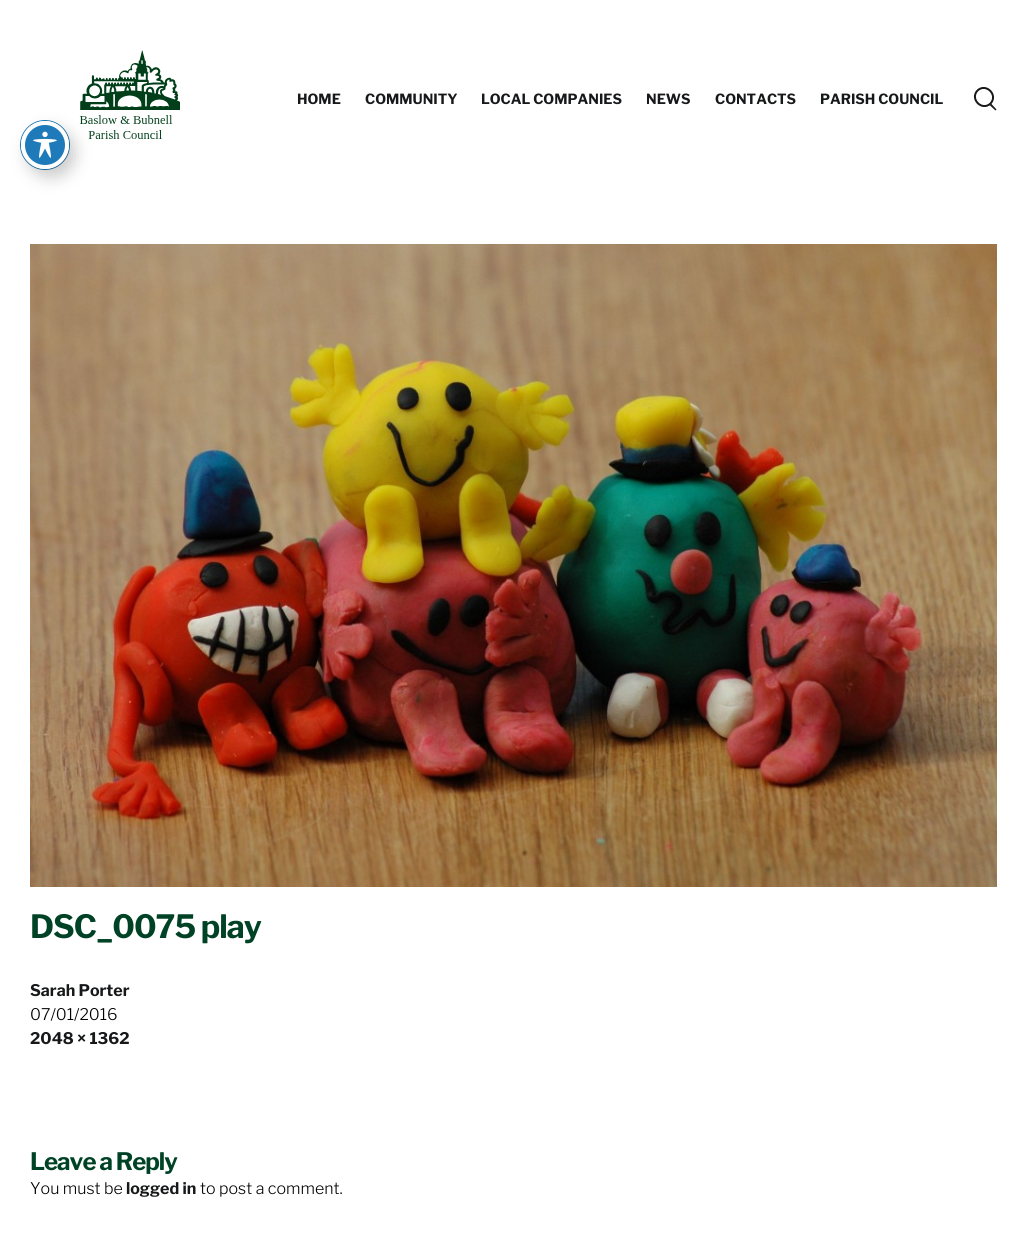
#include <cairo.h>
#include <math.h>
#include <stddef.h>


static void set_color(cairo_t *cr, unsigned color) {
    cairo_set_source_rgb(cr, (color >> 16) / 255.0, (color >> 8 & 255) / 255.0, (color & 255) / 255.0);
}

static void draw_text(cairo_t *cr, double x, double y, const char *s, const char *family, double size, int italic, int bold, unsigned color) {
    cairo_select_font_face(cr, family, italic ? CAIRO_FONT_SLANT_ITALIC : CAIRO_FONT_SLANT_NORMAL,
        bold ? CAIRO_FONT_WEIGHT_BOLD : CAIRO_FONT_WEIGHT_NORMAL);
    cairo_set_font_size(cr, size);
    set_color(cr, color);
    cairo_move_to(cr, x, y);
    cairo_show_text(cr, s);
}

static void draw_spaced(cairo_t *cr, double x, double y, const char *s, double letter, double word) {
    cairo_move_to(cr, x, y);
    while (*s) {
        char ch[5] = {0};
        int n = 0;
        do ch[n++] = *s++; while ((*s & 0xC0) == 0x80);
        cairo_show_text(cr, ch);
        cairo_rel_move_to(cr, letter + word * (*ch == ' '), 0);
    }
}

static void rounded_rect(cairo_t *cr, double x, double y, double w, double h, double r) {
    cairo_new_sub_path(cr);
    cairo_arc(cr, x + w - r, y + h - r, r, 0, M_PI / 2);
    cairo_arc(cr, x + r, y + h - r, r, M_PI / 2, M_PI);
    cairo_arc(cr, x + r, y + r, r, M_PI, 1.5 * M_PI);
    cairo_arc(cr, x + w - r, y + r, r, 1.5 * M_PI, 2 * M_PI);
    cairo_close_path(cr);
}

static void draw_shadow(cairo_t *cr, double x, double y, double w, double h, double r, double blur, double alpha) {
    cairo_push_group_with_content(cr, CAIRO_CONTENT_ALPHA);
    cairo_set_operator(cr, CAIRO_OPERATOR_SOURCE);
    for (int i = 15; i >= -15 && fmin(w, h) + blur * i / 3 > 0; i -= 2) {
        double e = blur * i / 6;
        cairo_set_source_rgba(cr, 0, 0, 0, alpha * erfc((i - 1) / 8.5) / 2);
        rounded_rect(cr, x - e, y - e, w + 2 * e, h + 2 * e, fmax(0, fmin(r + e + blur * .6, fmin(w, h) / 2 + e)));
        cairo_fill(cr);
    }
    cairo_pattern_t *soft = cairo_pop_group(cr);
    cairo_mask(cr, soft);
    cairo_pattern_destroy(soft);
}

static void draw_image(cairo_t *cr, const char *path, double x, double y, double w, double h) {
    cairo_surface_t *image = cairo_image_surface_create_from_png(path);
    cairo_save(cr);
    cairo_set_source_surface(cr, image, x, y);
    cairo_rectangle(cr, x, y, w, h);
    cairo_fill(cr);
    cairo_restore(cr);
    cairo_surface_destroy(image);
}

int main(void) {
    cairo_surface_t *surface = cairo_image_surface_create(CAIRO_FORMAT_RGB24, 1027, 1244);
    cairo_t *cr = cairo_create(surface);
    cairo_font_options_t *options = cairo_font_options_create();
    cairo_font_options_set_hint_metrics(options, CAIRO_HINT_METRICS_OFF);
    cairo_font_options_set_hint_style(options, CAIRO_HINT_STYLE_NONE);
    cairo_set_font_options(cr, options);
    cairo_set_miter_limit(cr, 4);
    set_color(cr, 0xFFFFFF);
    cairo_paint(cr);
    draw_image(cr, "assets/img1.png", 79, 50, 101, 89);
    draw_text(cr, 297, 104, "HOME", "Libre Franklin", 14, 0, 1, 0x171819);
    draw_text(cr, 365, 104, "COMMUNITY", "Libre Franklin", 14, 0, 1, 0x171819);
    draw_text(cr, 481, 104, "LOCAL COMPANIES", "Libre Franklin", 14, 0, 1, 0x171819);
    draw_text(cr, 646, 104, "NEWS", "Libre Franklin", 14, 0, 1, 0x171819);
    draw_text(cr, 715, 104, "CONTACTS", "Libre Franklin", 14, 0, 1, 0x171819);
    draw_text(cr, 820, 104, "PARISH COUNCIL", "Libre Franklin", 14, 0, 1, 0x171819);
    cairo_new_path(cr);
    cairo_move_to(cr, 977.5, 90.5);
    cairo_curve_to(cr, 986, 82.5, 998.5, 95, 990.5, 103.5);
    cairo_curve_to(cr, 982, 111.5, 969.5, 99, 977.5, 90.5);
    cairo_stroke(cr);
    cairo_new_path(cr);
    cairo_move_to(cr, 989.5, 105);
    cairo_line_to(cr, 991, 103.5);
    cairo_line_to(cr, 996.5, 109.5);
    cairo_line_to(cr, 995.5, 110.5);
    cairo_close_path(cr);
    cairo_fill(cr);
    draw_image(cr, "assets/img2.png", 30, 244, 967, 643);
    cairo_set_font_size(cr, 32);
    set_color(cr, 0x004225);
    draw_spaced(cr, 30, 938, "DSC_0075 play", -1, 0);
    draw_text(cr, 30, 996, "Sarah Porter", "Libre Franklin", 16, 0, 1, 0x171819);
    draw_text(cr, 30, 1020, "07/01/2016", "Libre Franklin Light", 16, 0, 0, 0x000000);
    draw_text(cr, 30, 1044, "2048 × 1362", "Libre Franklin", 16, 0, 1, 0x171819);
    cairo_set_font_size(cr, 24);
    set_color(cr, 0x004225);
    draw_spaced(cr, 30, 1170, "Leave a Reply", -1, 0);
    draw_text(cr, 30, 1194, "You must be", "Libre Franklin Light", 16, 0, 0, 0x000000);
    draw_text(cr, 126, 1194, "logged in", "Libre Franklin", 16, 0, 1, 0x171819);
    draw_text(cr, 200, 1194, "to post a comment.", "Libre Franklin Light", 16, 0, 0, 0x000000);
    cairo_new_path(cr);
    cairo_arc(cr, 45, 145, 24.5, 0, 2 * M_PI);
    set_color(cr, 0x1E7AB9);
    cairo_set_line_width(cr, 1);
    cairo_stroke(cr);
    set_color(cr, 0x000000);
    draw_shadow(cr, 27, 129, 48, 48, 24, 8, 0.2);
    set_color(cr, 0x1E7AB9);
    cairo_arc(cr, 45, 145, 22, 0, 2 * M_PI);
    cairo_fill_preserve(cr);
    set_color(cr, 0xFFFFFF);
    cairo_set_line_width(cr, 4);
    cairo_stroke(cr);
    draw_image(cr, "assets/img3.png", 33, 131, 24, 27);
    cairo_surface_write_to_png(surface, "output.png");
    cairo_font_options_destroy(options);
    cairo_destroy(cr);
    cairo_surface_destroy(surface);
    return 0;
}
